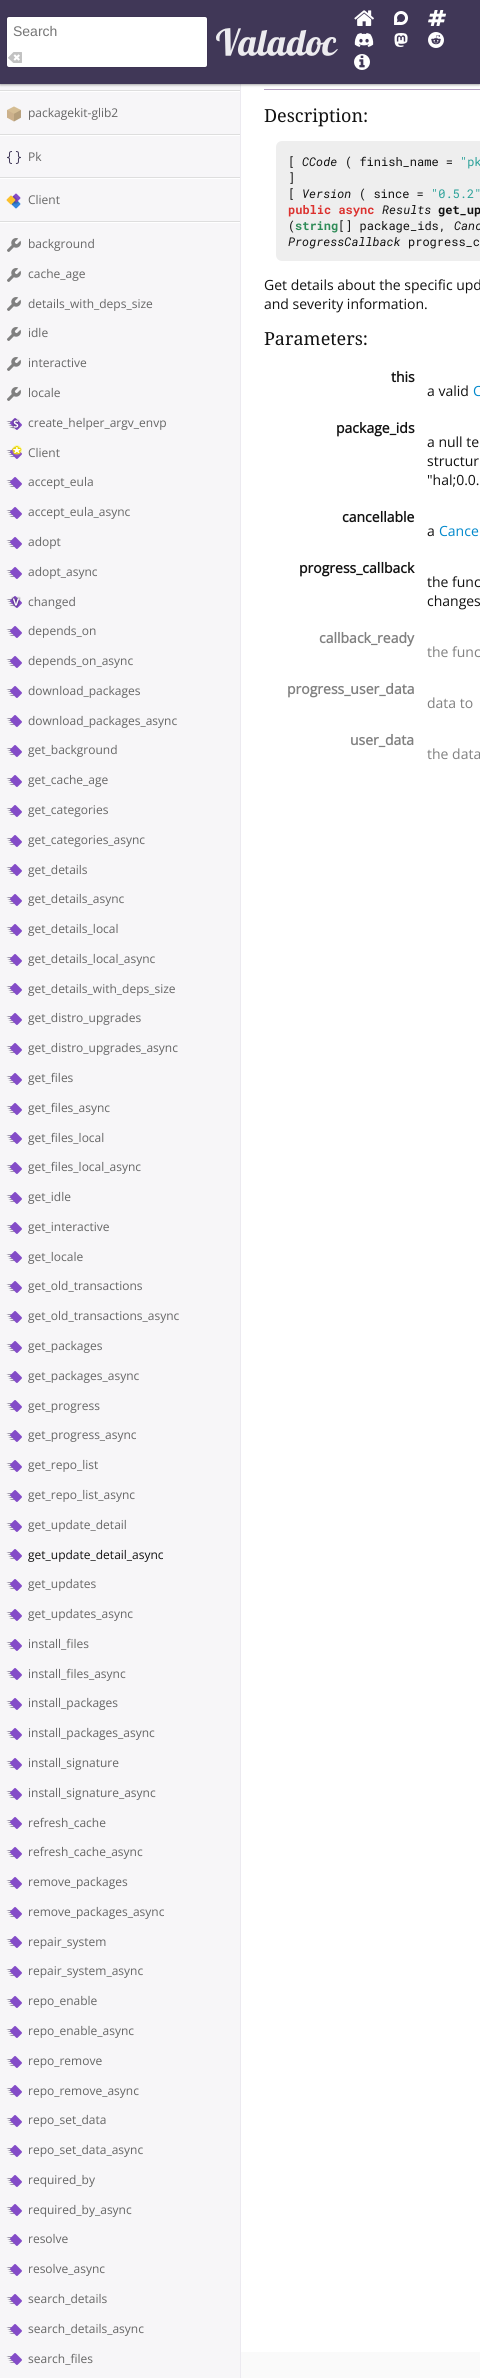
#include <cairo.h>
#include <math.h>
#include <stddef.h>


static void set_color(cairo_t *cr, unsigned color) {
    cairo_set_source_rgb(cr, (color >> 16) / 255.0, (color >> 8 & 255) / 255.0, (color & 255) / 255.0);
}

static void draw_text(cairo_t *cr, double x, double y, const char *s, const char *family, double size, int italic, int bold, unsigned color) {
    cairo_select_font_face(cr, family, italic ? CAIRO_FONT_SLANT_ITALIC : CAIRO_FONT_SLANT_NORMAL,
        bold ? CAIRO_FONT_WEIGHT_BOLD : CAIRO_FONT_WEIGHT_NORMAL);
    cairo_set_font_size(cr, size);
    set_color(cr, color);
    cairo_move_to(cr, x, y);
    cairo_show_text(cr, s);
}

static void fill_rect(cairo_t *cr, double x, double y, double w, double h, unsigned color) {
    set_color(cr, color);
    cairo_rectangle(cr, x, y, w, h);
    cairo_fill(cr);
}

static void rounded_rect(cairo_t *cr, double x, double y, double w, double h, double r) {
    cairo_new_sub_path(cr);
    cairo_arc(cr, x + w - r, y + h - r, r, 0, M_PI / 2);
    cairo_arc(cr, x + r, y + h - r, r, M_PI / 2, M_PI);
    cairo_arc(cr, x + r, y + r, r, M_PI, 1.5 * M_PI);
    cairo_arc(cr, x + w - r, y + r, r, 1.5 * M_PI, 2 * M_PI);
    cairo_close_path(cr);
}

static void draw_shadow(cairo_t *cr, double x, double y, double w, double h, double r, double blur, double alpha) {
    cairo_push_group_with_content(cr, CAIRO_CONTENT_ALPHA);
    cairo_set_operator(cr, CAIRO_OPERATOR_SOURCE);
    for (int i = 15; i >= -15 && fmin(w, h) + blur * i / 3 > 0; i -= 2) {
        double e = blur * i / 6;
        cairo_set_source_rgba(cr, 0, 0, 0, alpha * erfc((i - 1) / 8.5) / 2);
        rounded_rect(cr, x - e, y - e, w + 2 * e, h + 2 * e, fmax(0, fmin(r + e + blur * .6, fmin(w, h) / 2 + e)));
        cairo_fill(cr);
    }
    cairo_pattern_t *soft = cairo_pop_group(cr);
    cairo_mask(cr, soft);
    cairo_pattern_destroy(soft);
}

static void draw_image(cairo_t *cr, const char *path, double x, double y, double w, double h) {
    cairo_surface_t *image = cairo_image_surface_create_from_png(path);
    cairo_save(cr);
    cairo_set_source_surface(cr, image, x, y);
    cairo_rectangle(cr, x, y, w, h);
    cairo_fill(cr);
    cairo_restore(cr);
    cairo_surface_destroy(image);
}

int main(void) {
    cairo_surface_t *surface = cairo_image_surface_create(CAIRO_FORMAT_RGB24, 480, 2378);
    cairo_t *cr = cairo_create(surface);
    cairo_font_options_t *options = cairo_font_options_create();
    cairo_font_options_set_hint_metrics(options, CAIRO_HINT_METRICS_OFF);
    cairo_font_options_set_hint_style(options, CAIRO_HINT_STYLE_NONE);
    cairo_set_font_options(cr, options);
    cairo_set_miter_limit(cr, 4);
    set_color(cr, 0xFFFFFF);
    cairo_paint(cr);
    fill_rect(cr, 0, 84, 240, 2294, 0xF7F6F8);
    fill_rect(cr, 240, 84, 1, 2294, 0xECEAF0);
    set_color(cr, 0x000000);
    draw_shadow(cr, 0, 1, 480, 84, 0, 1, 0.24);
    fill_rect(cr, 0, 90, 240, 1, 0xDEDEDE);
    fill_rect(cr, 264, 89, 216, 1, 0xB4A0C1);
    set_color(cr, 0x000000);
    draw_shadow(cr, 0, 1, 480, 84, 0, 1.5, 0.12);
    fill_rect(cr, 0, 0, 480, 84, 0x403757);
    set_color(cr, 0xFFFFFF);
    rounded_rect(cr, 7, 17, 200, 50, 2);
    cairo_fill(cr);
    cairo_rectangle(cr, 6.5, 16.5, 201, 51);
    cairo_set_source_rgba(cr, 0, 0, 0, 0.05);
    cairo_set_line_width(cr, 1);
    cairo_stroke(cr);
    draw_text(cr, 13, 36, "Search", "Liberation Sans", 14, 0, 0, 0x757575);
    draw_image(cr, "assets/img1.png", 8, 52, 14, 11);
    draw_image(cr, "assets/img2.png", 216, 28, 122, 28);
    draw_image(cr, "assets/img3.png", 354, 10, 20, 16);
    draw_image(cr, "assets/img4.png", 394, 11, 14, 14);
    draw_image(cr, "assets/img5.png", 428, 10, 18, 16);
    draw_image(cr, "assets/img6.png", 354, 33, 20, 14);
    draw_image(cr, "assets/img7.png", 394, 33, 14, 14);
    draw_image(cr, "assets/img8.png", 428, 32, 16, 16);
    draw_image(cr, "assets/img9.png", 354, 54, 16, 16);
    fill_rect(cr, 0, 91, 240, 1, 0xFFFFFF);
    draw_image(cr, "assets/img10.png", 7, 106, 14, 16);
    draw_text(cr, 28, 117, "packagekit-glib2", "Open Sans", 12, 0, 0, 0x666666);
    fill_rect(cr, 0, 134, 240, 1, 0xDEDEDE);
    fill_rect(cr, 0, 135, 240, 1, 0xFFFFFF);
    draw_image(cr, "assets/img11.png", 7, 151, 14, 13);
    draw_text(cr, 28, 161, "Pk", "Open Sans", 12, 0, 0, 0x666666);
    fill_rect(cr, 0, 177, 240, 1, 0xDEDEDE);
    fill_rect(cr, 0, 178, 240, 1, 0xFFFFFF);
    draw_image(cr, "assets/img12.png", 6, 193, 15, 16);
    draw_text(cr, 28, 204, "Client", "Open Sans", 12, 0, 0, 0x666666);
    fill_rect(cr, 0, 221, 240, 1, 0xDEDEDE);
    fill_rect(cr, 0, 222, 240, 1, 0xFFFFFF);
    draw_image(cr, "assets/img13.png", 7, 238, 14, 14);
    draw_text(cr, 28, 248, "background", "Open Sans", 12, 0, 0, 0x666666);
    draw_image(cr, "assets/img13.png", 7, 268, 14, 14);
    draw_text(cr, 28, 278, "cache_age", "Open Sans", 12, 0, 0, 0x666666);
    draw_image(cr, "assets/img13.png", 7, 297, 14, 14);
    draw_text(cr, 28, 308, "details_with_deps_size", "Open Sans", 12, 0, 0, 0x666666);
    draw_image(cr, "assets/img13.png", 7, 327, 14, 14);
    draw_text(cr, 28, 337, "idle", "Open Sans", 12, 0, 0, 0x666666);
    draw_image(cr, "assets/img13.png", 7, 357, 14, 14);
    draw_text(cr, 28, 367, "interactive", "Open Sans", 12, 0, 0, 0x666666);
    draw_image(cr, "assets/img13.png", 7, 387, 14, 14);
    draw_text(cr, 28, 397, "locale", "Open Sans", 12, 0, 0, 0x666666);
    draw_image(cr, "assets/img14.png", 6, 418, 16, 12);
    draw_text(cr, 28, 427, "create_helper_argv_envp", "Open Sans", 12, 0, 0, 0x666666);
    draw_image(cr, "assets/img15.png", 6, 445, 16, 14);
    draw_text(cr, 28, 457, "Client", "Open Sans", 12, 0, 0, 0x666666);
    draw_image(cr, "assets/img16.png", 6, 477, 16, 12);
    draw_text(cr, 28, 486, "accept_eula", "Open Sans", 12, 0, 0, 0x666666);
    draw_image(cr, "assets/img16.png", 6, 507, 16, 12);
    draw_text(cr, 28, 516, "accept_eula_async", "Open Sans", 12, 0, 0, 0x666666);
    draw_image(cr, "assets/img16.png", 6, 537, 16, 12);
    draw_text(cr, 28, 546, "adopt", "Open Sans", 12, 0, 0, 0x666666);
    draw_image(cr, "assets/img16.png", 6, 567, 16, 12);
    draw_text(cr, 28, 576, "adopt_async", "Open Sans", 12, 0, 0, 0x666666);
    draw_image(cr, "assets/img17.png", 6, 596, 16, 12);
    draw_text(cr, 28, 606, "changed", "Open Sans", 12, 0, 0, 0x666666);
    draw_image(cr, "assets/img16.png", 6, 626, 16, 12);
    draw_text(cr, 28, 635, "depends_on", "Open Sans", 12, 0, 0, 0x666666);
    draw_image(cr, "assets/img16.png", 6, 656, 16, 12);
    draw_text(cr, 28, 665, "depends_on_async", "Open Sans", 12, 0, 0, 0x666666);
    draw_image(cr, "assets/img16.png", 6, 686, 16, 12);
    draw_text(cr, 28, 695, "download_packages", "Open Sans", 12, 0, 0, 0x666666);
    draw_image(cr, "assets/img16.png", 6, 715, 16, 12);
    draw_text(cr, 28, 725, "download_packages_async", "Open Sans", 12, 0, 0, 0x666666);
    draw_image(cr, "assets/img16.png", 6, 745, 16, 12);
    draw_text(cr, 28, 754, "get_background", "Open Sans", 12, 0, 0, 0x666666);
    draw_image(cr, "assets/img16.png", 6, 775, 16, 12);
    draw_text(cr, 28, 784, "get_cache_age", "Open Sans", 12, 0, 0, 0x666666);
    draw_image(cr, "assets/img16.png", 6, 805, 16, 12);
    draw_text(cr, 28, 814, "get_categories", "Open Sans", 12, 0, 0, 0x666666);
    draw_image(cr, "assets/img16.png", 6, 835, 16, 12);
    draw_text(cr, 28, 844, "get_categories_async", "Open Sans", 12, 0, 0, 0x666666);
    draw_image(cr, "assets/img16.png", 6, 864, 16, 12);
    draw_text(cr, 28, 874, "get_details", "Open Sans", 12, 0, 0, 0x666666);
    draw_image(cr, "assets/img16.png", 6, 894, 16, 12);
    draw_text(cr, 28, 903, "get_details_async", "Open Sans", 12, 0, 0, 0x666666);
    draw_image(cr, "assets/img16.png", 6, 924, 16, 12);
    draw_text(cr, 28, 933, "get_details_local", "Open Sans", 12, 0, 0, 0x666666);
    draw_image(cr, "assets/img16.png", 6, 954, 16, 12);
    draw_text(cr, 28, 963, "get_details_local_async", "Open Sans", 12, 0, 0, 0x666666);
    draw_image(cr, "assets/img16.png", 6, 983, 16, 12);
    draw_text(cr, 28, 993, "get_details_with_deps_size", "Open Sans", 12, 0, 0, 0x666666);
    draw_image(cr, "assets/img16.png", 6, 1013, 16, 12);
    draw_text(cr, 28, 1022, "get_distro_upgrades", "Open Sans", 12, 0, 0, 0x666666);
    draw_image(cr, "assets/img16.png", 6, 1043, 16, 12);
    draw_text(cr, 28, 1052, "get_distro_upgrades_async", "Open Sans", 12, 0, 0, 0x666666);
    draw_image(cr, "assets/img16.png", 6, 1073, 16, 12);
    draw_text(cr, 28, 1082, "get_files", "Open Sans", 12, 0, 0, 0x666666);
    draw_image(cr, "assets/img16.png", 6, 1103, 16, 12);
    draw_text(cr, 28, 1112, "get_files_async", "Open Sans", 12, 0, 0, 0x666666);
    draw_image(cr, "assets/img16.png", 6, 1132, 16, 12);
    draw_text(cr, 28, 1142, "get_files_local", "Open Sans", 12, 0, 0, 0x666666);
    draw_image(cr, "assets/img16.png", 6, 1162, 16, 12);
    draw_text(cr, 28, 1171, "get_files_local_async", "Open Sans", 12, 0, 0, 0x666666);
    draw_image(cr, "assets/img16.png", 6, 1192, 16, 12);
    draw_text(cr, 28, 1201, "get_idle", "Open Sans", 12, 0, 0, 0x666666);
    draw_image(cr, "assets/img16.png", 6, 1222, 16, 12);
    draw_text(cr, 28, 1231, "get_interactive", "Open Sans", 12, 0, 0, 0x666666);
    draw_image(cr, "assets/img16.png", 6, 1251, 16, 12);
    draw_text(cr, 28, 1261, "get_locale", "Open Sans", 12, 0, 0, 0x666666);
    draw_image(cr, "assets/img16.png", 6, 1281, 16, 12);
    draw_text(cr, 28, 1290, "get_old_transactions", "Open Sans", 12, 0, 0, 0x666666);
    draw_image(cr, "assets/img16.png", 6, 1311, 16, 12);
    draw_text(cr, 28, 1320, "get_old_transactions_async", "Open Sans", 12, 0, 0, 0x666666);
    draw_image(cr, "assets/img16.png", 6, 1341, 16, 12);
    draw_text(cr, 28, 1350, "get_packages", "Open Sans", 12, 0, 0, 0x666666);
    draw_image(cr, "assets/img16.png", 6, 1371, 16, 12);
    draw_text(cr, 28, 1380, "get_packages_async", "Open Sans", 12, 0, 0, 0x666666);
    draw_image(cr, "assets/img16.png", 6, 1400, 16, 12);
    draw_text(cr, 28, 1410, "get_progress", "Open Sans", 12, 0, 0, 0x666666);
    draw_image(cr, "assets/img16.png", 6, 1430, 16, 12);
    draw_text(cr, 28, 1439, "get_progress_async", "Open Sans", 12, 0, 0, 0x666666);
    draw_image(cr, "assets/img16.png", 6, 1460, 16, 12);
    draw_text(cr, 28, 1469, "get_repo_list", "Open Sans", 12, 0, 0, 0x666666);
    draw_image(cr, "assets/img16.png", 6, 1490, 16, 12);
    draw_text(cr, 28, 1499, "get_repo_list_async", "Open Sans", 12, 0, 0, 0x666666);
    draw_image(cr, "assets/img16.png", 6, 1520, 16, 12);
    draw_text(cr, 28, 1529, "get_update_detail", "Open Sans", 12, 0, 0, 0x666666);
    draw_image(cr, "assets/img16.png", 6, 1549, 16, 12);
    draw_text(cr, 28, 1559, "get_update_detail_async", "Open Sans", 12, 0, 0, 0x111111);
    draw_image(cr, "assets/img16.png", 6, 1579, 16, 12);
    draw_text(cr, 28, 1588, "get_updates", "Open Sans", 12, 0, 0, 0x666666);
    draw_image(cr, "assets/img16.png", 6, 1609, 16, 12);
    draw_text(cr, 28, 1618, "get_updates_async", "Open Sans", 12, 0, 0, 0x666666);
    draw_image(cr, "assets/img16.png", 6, 1639, 16, 12);
    draw_text(cr, 28, 1648, "install_files", "Open Sans", 12, 0, 0, 0x666666);
    draw_image(cr, "assets/img16.png", 6, 1668, 16, 12);
    draw_text(cr, 28, 1678, "install_files_async", "Open Sans", 12, 0, 0, 0x666666);
    draw_image(cr, "assets/img16.png", 6, 1698, 16, 12);
    draw_text(cr, 28, 1707, "install_packages", "Open Sans", 12, 0, 0, 0x666666);
    draw_image(cr, "assets/img16.png", 6, 1728, 16, 12);
    draw_text(cr, 28, 1737, "install_packages_async", "Open Sans", 12, 0, 0, 0x666666);
    draw_image(cr, "assets/img16.png", 6, 1758, 16, 12);
    draw_text(cr, 28, 1767, "install_signature", "Open Sans", 12, 0, 0, 0x666666);
    draw_image(cr, "assets/img16.png", 6, 1788, 16, 12);
    draw_text(cr, 28, 1797, "install_signature_async", "Open Sans", 12, 0, 0, 0x666666);
    draw_image(cr, "assets/img16.png", 6, 1817, 16, 12);
    draw_text(cr, 28, 1827, "refresh_cache", "Open Sans", 12, 0, 0, 0x666666);
    draw_image(cr, "assets/img16.png", 6, 1847, 16, 12);
    draw_text(cr, 28, 1856, "refresh_cache_async", "Open Sans", 12, 0, 0, 0x666666);
    draw_image(cr, "assets/img16.png", 6, 1877, 16, 12);
    draw_text(cr, 28, 1886, "remove_packages", "Open Sans", 12, 0, 0, 0x666666);
    draw_image(cr, "assets/img16.png", 6, 1907, 16, 12);
    draw_text(cr, 28, 1916, "remove_packages_async", "Open Sans", 12, 0, 0, 0x666666);
    draw_image(cr, "assets/img16.png", 6, 1936, 16, 12);
    draw_text(cr, 28, 1946, "repair_system", "Open Sans", 12, 0, 0, 0x666666);
    draw_image(cr, "assets/img16.png", 6, 1966, 16, 12);
    draw_text(cr, 28, 1975, "repair_system_async", "Open Sans", 12, 0, 0, 0x666666);
    draw_image(cr, "assets/img16.png", 6, 1996, 16, 12);
    draw_text(cr, 28, 2005, "repo_enable", "Open Sans", 12, 0, 0, 0x666666);
    draw_image(cr, "assets/img16.png", 6, 2026, 16, 12);
    draw_text(cr, 28, 2035, "repo_enable_async", "Open Sans", 12, 0, 0, 0x666666);
    draw_image(cr, "assets/img16.png", 6, 2056, 16, 12);
    draw_text(cr, 28, 2065, "repo_remove", "Open Sans", 12, 0, 0, 0x666666);
    draw_image(cr, "assets/img16.png", 6, 2085, 16, 12);
    draw_text(cr, 28, 2095, "repo_remove_async", "Open Sans", 12, 0, 0, 0x666666);
    draw_image(cr, "assets/img16.png", 6, 2115, 16, 12);
    draw_text(cr, 28, 2124, "repo_set_data", "Open Sans", 12, 0, 0, 0x666666);
    draw_image(cr, "assets/img16.png", 6, 2145, 16, 12);
    draw_text(cr, 28, 2154, "repo_set_data_async", "Open Sans", 12, 0, 0, 0x666666);
    draw_image(cr, "assets/img16.png", 6, 2175, 16, 12);
    draw_text(cr, 28, 2184, "required_by", "Open Sans", 12, 0, 0, 0x666666);
    draw_image(cr, "assets/img16.png", 6, 2204, 16, 12);
    draw_text(cr, 28, 2214, "required_by_async", "Open Sans", 12, 0, 0, 0x666666);
    draw_image(cr, "assets/img16.png", 6, 2234, 16, 12);
    draw_text(cr, 28, 2243, "resolve", "Open Sans", 12, 0, 0, 0x666666);
    draw_image(cr, "assets/img16.png", 6, 2264, 16, 12);
    draw_text(cr, 28, 2273, "resolve_async", "Open Sans", 12, 0, 0, 0x666666);
    draw_image(cr, "assets/img16.png", 6, 2294, 16, 12);
    draw_text(cr, 28, 2303, "search_details", "Open Sans", 12, 0, 0, 0x666666);
    draw_image(cr, "assets/img16.png", 6, 2324, 16, 12);
    draw_text(cr, 28, 2333, "search_details_async", "Open Sans", 12, 0, 0, 0x666666);
    draw_image(cr, "assets/img16.png", 6, 2353, 16, 12);
    draw_text(cr, 28, 2363, "search_files", "Open Sans", 12, 0, 0, 0x666666);
    draw_text(cr, 264, 122, "Description:", "Droid Serif", 18, 0, 0, 0x111111);
    set_color(cr, 0xEEEEEE);
    rounded_rect(cr, 276, 141, 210, 120, 6);
    cairo_fill(cr);
    draw_text(cr, 288, 166, "[", "Roboto Mono", 12, 0, 0, 0x111111);
    draw_text(cr, 302, 166, "CCode", "Roboto Mono", 12, 1, 0, 0x111111);
    draw_text(cr, 345, 166, "( finish_name =", "Roboto Mono", 12, 0, 0, 0x111111);
    draw_text(cr, 460, 166, "\"pk", "Roboto Mono", 12, 0, 0, 0x2BA199);
    draw_text(cr, 288, 182, "]", "Roboto Mono", 12, 0, 0, 0x111111);
    draw_text(cr, 288, 198, "[", "Roboto Mono", 12, 0, 0, 0x111111);
    draw_text(cr, 302, 198, "Version", "Roboto Mono", 12, 1, 0, 0x111111);
    draw_text(cr, 359, 198, "( since =", "Roboto Mono", 12, 0, 0, 0x111111);
    draw_text(cr, 431, 198, "\"0.5.2\"", "Roboto Mono", 12, 0, 0, 0x2BA199);
    draw_text(cr, 288, 214, "public async", "Roboto Mono", 12, 0, 1, 0xDC322F);
    draw_text(cr, 382, 214, "Results", "Roboto Mono", 12, 1, 0, 0x111111);
    draw_text(cr, 438, 214, "get_up", "Roboto Mono", 12, 0, 1, 0x111111);
    draw_text(cr, 288, 230, "(", "Roboto Mono", 12, 0, 0, 0x111111);
    draw_text(cr, 295, 230, "string", "Roboto Mono", 12, 0, 1, 0x2E8B57);
    draw_text(cr, 338, 230, "[] package_ids,", "Roboto Mono", 12, 0, 0, 0x111111);
    draw_text(cr, 454, 230, "Canc", "Roboto Mono", 12, 1, 0, 0x111111);
    draw_text(cr, 288, 246, "ProgressCallback", "Roboto Mono", 12, 1, 0, 0x111111);
    draw_text(cr, 408, 246, "progress_c", "Roboto Mono", 12, 0, 0, 0x111111);
    draw_text(cr, 264, 290, "Get details about the specific upd", "Open Sans", 14, 0, 0, 0x111111);
    draw_text(cr, 264, 309, "and severity information.", "Open Sans", 14, 0, 0, 0x111111);
    draw_text(cr, 264, 345, "Parameters:", "Droid Serif", 18, 0, 0, 0x111111);
    draw_text(cr, 391, 382, "this", "Open Sans", 14, 0, 1, 0x111111);
    draw_text(cr, 427, 396, "a valid", "Open Sans", 14, 0, 0, 0x111111);
    draw_text(cr, 473, 396, "C", "Open Sans", 14, 0, 0, 0x0088CC);
    draw_text(cr, 336, 433, "package_ids", "Open Sans", 14, 0, 1, 0x111111);
    draw_text(cr, 427, 447, "a null te", "Open Sans", 14, 0, 0, 0x111111);
    draw_text(cr, 427, 466, "structur", "Open Sans", 14, 0, 0, 0x111111);
    draw_text(cr, 427, 485, "\"hal;0.0.", "Open Sans", 14, 0, 0, 0x111111);
    draw_text(cr, 342, 522, "cancellable", "Open Sans", 14, 0, 1, 0x111111);
    draw_text(cr, 427, 536, "a", "Open Sans", 14, 0, 0, 0x111111);
    draw_text(cr, 439, 536, "Cance", "Open Sans", 14, 0, 0, 0x0088CC);
    draw_text(cr, 299, 573, "progress_callback", "Open Sans", 14, 0, 1, 0x111111);
    draw_text(cr, 427, 587, "the func", "Open Sans", 14, 0, 0, 0x111111);
    draw_text(cr, 427, 606, "changes", "Open Sans", 14, 0, 0, 0x111111);
    draw_text(cr, 319, 643, "callback_ready", "Open Sans", 14, 0, 1, 0x808080);
    draw_text(cr, 427, 657, "the func", "Open Sans", 14, 0, 0, 0x808080);
    draw_text(cr, 287, 694, "progress_user_data", "Open Sans", 14, 0, 1, 0x808080);
    draw_text(cr, 427, 708, "data to", "Open Sans", 14, 0, 0, 0x808080);
    draw_text(cr, 350, 745, "user_data", "Open Sans", 14, 0, 1, 0x808080);
    draw_text(cr, 427, 759, "the data", "Open Sans", 14, 0, 0, 0x808080);
    fill_rect(cr, 241, 2352, 239, 26, 0xFAFAFA);
    cairo_surface_write_to_png(surface, "output.png");
    cairo_font_options_destroy(options);
    cairo_destroy(cr);
    cairo_surface_destroy(surface);
    return 0;
}
